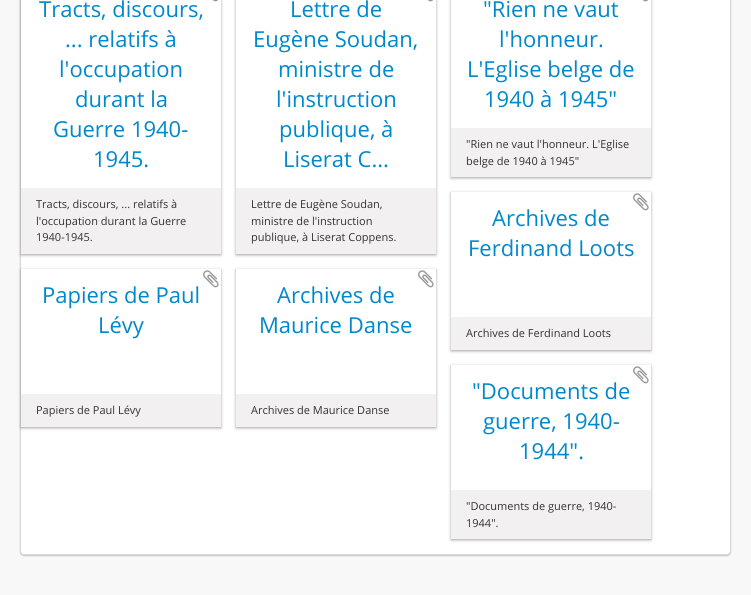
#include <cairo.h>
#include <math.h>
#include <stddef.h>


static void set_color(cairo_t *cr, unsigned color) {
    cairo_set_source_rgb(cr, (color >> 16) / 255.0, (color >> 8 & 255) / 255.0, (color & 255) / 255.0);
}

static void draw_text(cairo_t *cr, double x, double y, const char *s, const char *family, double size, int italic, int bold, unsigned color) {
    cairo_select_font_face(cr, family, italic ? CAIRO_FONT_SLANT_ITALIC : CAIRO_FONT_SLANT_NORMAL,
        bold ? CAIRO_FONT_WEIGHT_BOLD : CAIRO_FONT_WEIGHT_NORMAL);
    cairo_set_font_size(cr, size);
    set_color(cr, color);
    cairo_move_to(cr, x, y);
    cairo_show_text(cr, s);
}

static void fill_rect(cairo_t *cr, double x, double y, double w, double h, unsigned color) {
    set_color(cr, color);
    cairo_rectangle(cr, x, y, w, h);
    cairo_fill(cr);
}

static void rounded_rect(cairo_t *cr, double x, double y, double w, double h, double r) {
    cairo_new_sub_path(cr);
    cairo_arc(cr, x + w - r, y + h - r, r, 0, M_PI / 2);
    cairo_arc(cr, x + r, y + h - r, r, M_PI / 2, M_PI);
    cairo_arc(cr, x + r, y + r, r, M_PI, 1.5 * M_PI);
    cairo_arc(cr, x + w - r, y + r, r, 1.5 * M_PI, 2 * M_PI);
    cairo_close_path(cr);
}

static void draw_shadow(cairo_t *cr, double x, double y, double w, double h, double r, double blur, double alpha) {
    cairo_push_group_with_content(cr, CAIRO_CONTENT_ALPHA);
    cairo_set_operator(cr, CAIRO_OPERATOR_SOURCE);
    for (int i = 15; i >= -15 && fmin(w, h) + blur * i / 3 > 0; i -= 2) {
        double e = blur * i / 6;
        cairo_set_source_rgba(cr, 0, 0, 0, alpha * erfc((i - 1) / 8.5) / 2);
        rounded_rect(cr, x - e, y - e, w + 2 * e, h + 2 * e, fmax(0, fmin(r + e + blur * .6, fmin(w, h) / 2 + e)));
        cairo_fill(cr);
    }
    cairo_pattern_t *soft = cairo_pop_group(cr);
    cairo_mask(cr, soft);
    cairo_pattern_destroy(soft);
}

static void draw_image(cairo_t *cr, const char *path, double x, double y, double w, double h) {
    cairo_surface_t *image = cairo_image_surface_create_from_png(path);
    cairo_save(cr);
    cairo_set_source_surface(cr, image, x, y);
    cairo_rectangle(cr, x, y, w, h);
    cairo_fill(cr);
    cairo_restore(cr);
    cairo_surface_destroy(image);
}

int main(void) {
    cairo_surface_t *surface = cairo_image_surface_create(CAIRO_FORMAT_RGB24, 751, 595);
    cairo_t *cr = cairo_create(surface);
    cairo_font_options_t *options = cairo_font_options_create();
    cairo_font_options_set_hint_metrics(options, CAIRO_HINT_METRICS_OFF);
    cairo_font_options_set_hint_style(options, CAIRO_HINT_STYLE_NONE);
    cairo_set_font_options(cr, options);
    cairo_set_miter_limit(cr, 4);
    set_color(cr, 0xF8F8F8);
    cairo_paint(cr);
    set_color(cr, 0x000000);
    draw_shadow(cr, 20, -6, 711, 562, 4, 0.5, 0.2);
    set_color(cr, 0xFFFFFF);
    rounded_rect(cr, 20.5, -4.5, 710, 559, 3.5);
    cairo_fill_preserve(cr);
    set_color(cr, 0xD9D9D9);
    cairo_set_line_width(cr, 1);
    cairo_stroke(cr);
    cairo_save(cr);
    cairo_set_fill_rule(cr, CAIRO_FILL_RULE_EVEN_ODD);
    cairo_new_path(cr);
    cairo_move_to(cr, 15, 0);
    cairo_line_to(cr, 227, 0);
    cairo_line_to(cr, 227, 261);
    cairo_line_to(cr, 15, 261);
    cairo_close_path(cr);
    cairo_move_to(cr, 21, -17);
    cairo_line_to(cr, 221, -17);
    cairo_line_to(cr, 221, 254);
    cairo_line_to(cr, 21, 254);
    cairo_close_path(cr);
    cairo_clip(cr);
    set_color(cr, 0x191919);
    draw_shadow(cr, 21, -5, 200, 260, 0, 1.5, 0.4);
    cairo_restore(cr);
    draw_text(cr, 39, 17, "Tracts, discours,", "Open Sans", 22, 0, 0, 0x0088CC);
    draw_text(cr, 65, 47, "... relatifs à", "Open Sans", 22, 0, 0, 0x0088CC);
    draw_text(cr, 59, 77, "l'occupation", "Open Sans", 22, 0, 0, 0x0088CC);
    draw_text(cr, 75, 107, "durant la", "Open Sans", 22, 0, 0, 0x0088CC);
    draw_text(cr, 53, 137, "Guerre 1940-", "Open Sans", 22, 0, 0, 0x0088CC);
    draw_text(cr, 93, 167, "1945.", "Open Sans", 22, 0, 0, 0x0088CC);
    fill_rect(cr, 21, 188, 200, 66, 0xF2F0F0);
    draw_image(cr, "assets/img1.png", 212, 0, 6, 2);
    draw_text(cr, 36, 208, "Tracts, discours, ... relatifs à", "Open Sans", 11, 0, 0, 0x333333);
    draw_text(cr, 36, 225, "l'occupation durant la Guerre", "Open Sans", 11, 0, 0, 0x333333);
    draw_text(cr, 36, 241, "1940-1945.", "Open Sans", 11, 0, 0, 0x333333);
    cairo_save(cr);
    cairo_set_fill_rule(cr, CAIRO_FILL_RULE_EVEN_ODD);
    cairo_new_path(cr);
    cairo_move_to(cr, 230, 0);
    cairo_line_to(cr, 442, 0);
    cairo_line_to(cr, 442, 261);
    cairo_line_to(cr, 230, 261);
    cairo_close_path(cr);
    cairo_move_to(cr, 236, -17);
    cairo_line_to(cr, 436, -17);
    cairo_line_to(cr, 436, 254);
    cairo_line_to(cr, 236, 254);
    cairo_close_path(cr);
    cairo_clip(cr);
    set_color(cr, 0x191919);
    draw_shadow(cr, 236, -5, 200, 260, 0, 1.5, 0.4);
    cairo_restore(cr);
    draw_text(cr, 290, 17, "Lettre de", "Open Sans", 22, 0, 0, 0x0088CC);
    draw_text(cr, 253, 47, "Eugène Soudan,", "Open Sans", 22, 0, 0, 0x0088CC);
    draw_text(cr, 278, 77, "ministre de", "Open Sans", 22, 0, 0, 0x0088CC);
    draw_text(cr, 276, 107, "l'instruction", "Open Sans", 22, 0, 0, 0x0088CC);
    draw_text(cr, 279, 137, "publique, à", "Open Sans", 22, 0, 0, 0x0088CC);
    draw_text(cr, 283, 167, "Liserat C...", "Open Sans", 22, 0, 0, 0x0088CC);
    fill_rect(cr, 236, 188, 200, 66, 0xF2F0F0);
    draw_image(cr, "assets/img1.png", 427, 0, 6, 2);
    draw_text(cr, 251, 208, "Lettre de Eugène Soudan,", "Open Sans", 11, 0, 0, 0x333333);
    draw_text(cr, 251, 225, "ministre de l'instruction", "Open Sans", 11, 0, 0, 0x333333);
    draw_text(cr, 251, 241, "publique, à Liserat Coppens.", "Open Sans", 11, 0, 0, 0x333333);
    cairo_save(cr);
    cairo_set_fill_rule(cr, CAIRO_FILL_RULE_EVEN_ODD);
    cairo_new_path(cr);
    cairo_move_to(cr, 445, 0);
    cairo_line_to(cr, 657, 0);
    cairo_line_to(cr, 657, 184);
    cairo_line_to(cr, 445, 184);
    cairo_close_path(cr);
    cairo_move_to(cr, 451, -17);
    cairo_line_to(cr, 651, -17);
    cairo_line_to(cr, 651, 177);
    cairo_line_to(cr, 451, 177);
    cairo_close_path(cr);
    cairo_clip(cr);
    set_color(cr, 0x191919);
    draw_shadow(cr, 451, -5, 200, 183, 0, 1.5, 0.4);
    cairo_restore(cr);
    draw_text(cr, 483, 17, "\"Rien ne vaut", "Open Sans", 22, 0, 0, 0x0088CC);
    draw_text(cr, 499, 47, "l'honneur.", "Open Sans", 22, 0, 0, 0x0088CC);
    draw_text(cr, 467, 77, "L'Eglise belge de", "Open Sans", 22, 0, 0, 0x0088CC);
    draw_text(cr, 484, 107, "1940 à 1945\"", "Open Sans", 22, 0, 0, 0x0088CC);
    fill_rect(cr, 451, 128, 200, 49, 0xF2F0F0);
    draw_image(cr, "assets/img1.png", 642, 0, 6, 2);
    draw_text(cr, 466, 148, "\"Rien ne vaut l'honneur. L'Eglise", "Open Sans", 11, 0, 0, 0x333333);
    draw_text(cr, 466, 165, "belge de 1940 à 1945\"", "Open Sans", 11, 0, 0, 0x333333);
    cairo_save(cr);
    cairo_set_fill_rule(cr, CAIRO_FILL_RULE_EVEN_ODD);
    cairo_new_path(cr);
    cairo_move_to(cr, 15, 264);
    cairo_line_to(cr, 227, 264);
    cairo_line_to(cr, 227, 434);
    cairo_line_to(cr, 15, 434);
    cairo_close_path(cr);
    cairo_move_to(cr, 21, 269);
    cairo_line_to(cr, 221, 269);
    cairo_line_to(cr, 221, 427);
    cairo_line_to(cr, 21, 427);
    cairo_close_path(cr);
    cairo_clip(cr);
    set_color(cr, 0x191919);
    draw_shadow(cr, 21, 270, 200, 158, 0, 1.5, 0.4);
    cairo_restore(cr);
    draw_text(cr, 42, 303, "Papiers de Paul", "Open Sans", 22, 0, 0, 0x0088CC);
    draw_text(cr, 98, 333, "Lévy", "Open Sans", 22, 0, 0, 0x0088CC);
    fill_rect(cr, 21, 394, 200, 33, 0xF2F0F0);
    draw_image(cr, "assets/img2.png", 203, 270, 16, 18);
    draw_text(cr, 36, 414, "Papiers de Paul Lévy", "Open Sans", 11, 0, 0, 0x333333);
    cairo_save(cr);
    cairo_set_fill_rule(cr, CAIRO_FILL_RULE_EVEN_ODD);
    cairo_new_path(cr);
    cairo_move_to(cr, 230, 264);
    cairo_line_to(cr, 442, 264);
    cairo_line_to(cr, 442, 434);
    cairo_line_to(cr, 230, 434);
    cairo_close_path(cr);
    cairo_move_to(cr, 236, 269);
    cairo_line_to(cr, 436, 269);
    cairo_line_to(cr, 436, 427);
    cairo_line_to(cr, 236, 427);
    cairo_close_path(cr);
    cairo_clip(cr);
    set_color(cr, 0x191919);
    draw_shadow(cr, 236, 270, 200, 158, 0, 1.5, 0.4);
    cairo_restore(cr);
    draw_text(cr, 277, 303, "Archives de", "Open Sans", 22, 0, 0, 0x0088CC);
    draw_text(cr, 259, 333, "Maurice Danse", "Open Sans", 22, 0, 0, 0x0088CC);
    fill_rect(cr, 236, 394, 200, 33, 0xF2F0F0);
    draw_image(cr, "assets/img2.png", 418, 270, 16, 18);
    draw_text(cr, 251, 414, "Archives de Maurice Danse", "Open Sans", 11, 0, 0, 0x333333);
    cairo_save(cr);
    cairo_set_fill_rule(cr, CAIRO_FILL_RULE_EVEN_ODD);
    cairo_new_path(cr);
    cairo_move_to(cr, 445, 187);
    cairo_line_to(cr, 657, 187);
    cairo_line_to(cr, 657, 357);
    cairo_line_to(cr, 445, 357);
    cairo_close_path(cr);
    cairo_move_to(cr, 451, 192);
    cairo_line_to(cr, 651, 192);
    cairo_line_to(cr, 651, 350);
    cairo_line_to(cr, 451, 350);
    cairo_close_path(cr);
    cairo_clip(cr);
    set_color(cr, 0x191919);
    draw_shadow(cr, 451, 193, 200, 158, 0, 1.5, 0.4);
    cairo_restore(cr);
    draw_text(cr, 492, 226, "Archives de", "Open Sans", 22, 0, 0, 0x0088CC);
    draw_text(cr, 468, 256, "Ferdinand Loots", "Open Sans", 22, 0, 0, 0x0088CC);
    fill_rect(cr, 451, 317, 200, 33, 0xF2F0F0);
    draw_image(cr, "assets/img2.png", 633, 193, 16, 18);
    draw_text(cr, 466, 337, "Archives de Ferdinand Loots", "Open Sans", 11, 0, 0, 0x333333);
    cairo_save(cr);
    cairo_set_fill_rule(cr, CAIRO_FILL_RULE_EVEN_ODD);
    cairo_new_path(cr);
    cairo_move_to(cr, 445, 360);
    cairo_line_to(cr, 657, 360);
    cairo_line_to(cr, 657, 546);
    cairo_line_to(cr, 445, 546);
    cairo_close_path(cr);
    cairo_move_to(cr, 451, 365);
    cairo_line_to(cr, 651, 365);
    cairo_line_to(cr, 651, 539);
    cairo_line_to(cr, 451, 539);
    cairo_close_path(cr);
    cairo_clip(cr);
    set_color(cr, 0x191919);
    draw_shadow(cr, 451, 366, 200, 174, 0, 1.5, 0.4);
    cairo_restore(cr);
    draw_text(cr, 472, 399, "\"Documents de", "Open Sans", 22, 0, 0, 0x0088CC);
    draw_text(cr, 483, 429, "guerre, 1940-", "Open Sans", 22, 0, 0, 0x0088CC);
    draw_text(cr, 519, 459, "1944\".", "Open Sans", 22, 0, 0, 0x0088CC);
    fill_rect(cr, 451, 490, 200, 49, 0xF2F0F0);
    draw_image(cr, "assets/img2.png", 633, 366, 16, 18);
    draw_text(cr, 466, 510, "\"Documents de guerre, 1940-", "Open Sans", 11, 0, 0, 0x333333);
    draw_text(cr, 466, 527, "1944\".", "Open Sans", 11, 0, 0, 0x333333);
    cairo_surface_write_to_png(surface, "output.png");
    cairo_font_options_destroy(options);
    cairo_destroy(cr);
    cairo_surface_destroy(surface);
    return 0;
}
